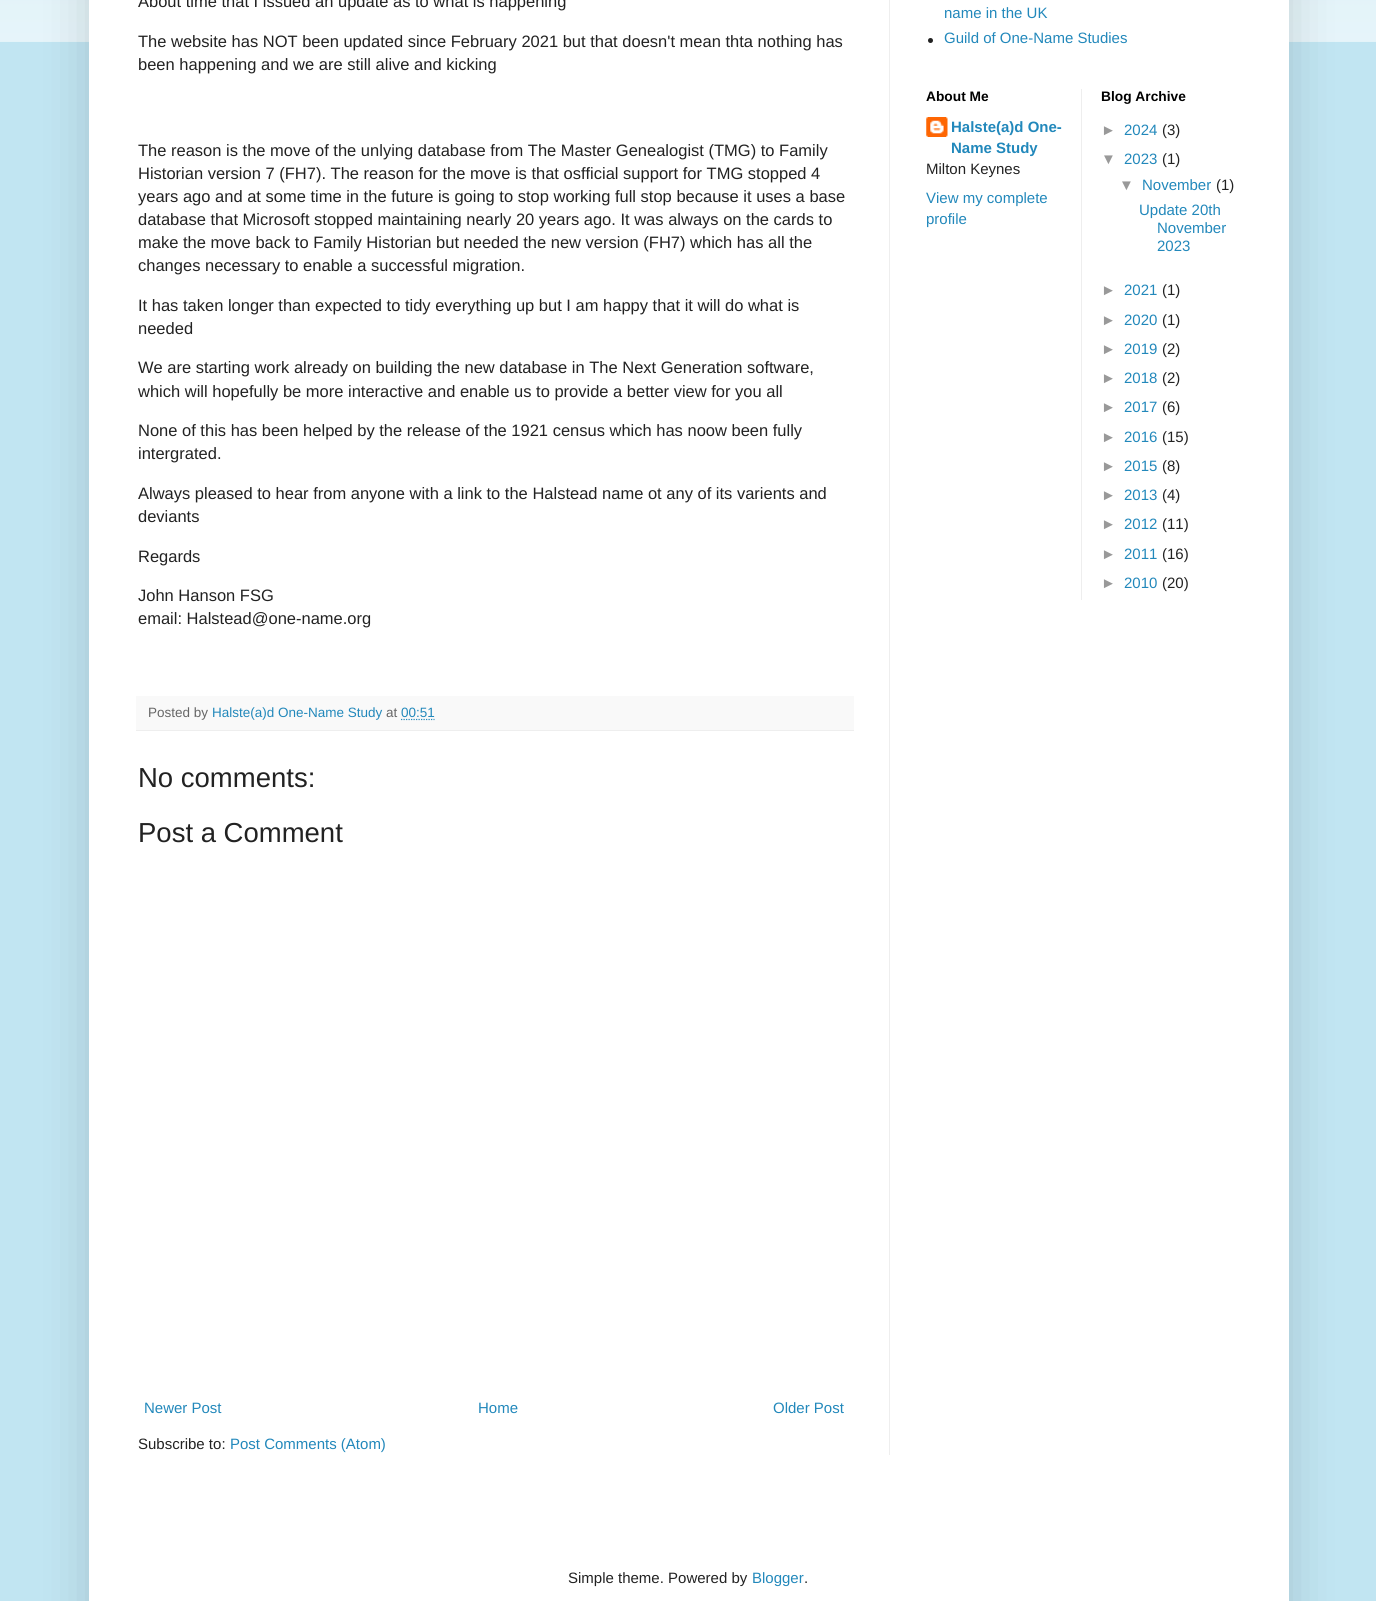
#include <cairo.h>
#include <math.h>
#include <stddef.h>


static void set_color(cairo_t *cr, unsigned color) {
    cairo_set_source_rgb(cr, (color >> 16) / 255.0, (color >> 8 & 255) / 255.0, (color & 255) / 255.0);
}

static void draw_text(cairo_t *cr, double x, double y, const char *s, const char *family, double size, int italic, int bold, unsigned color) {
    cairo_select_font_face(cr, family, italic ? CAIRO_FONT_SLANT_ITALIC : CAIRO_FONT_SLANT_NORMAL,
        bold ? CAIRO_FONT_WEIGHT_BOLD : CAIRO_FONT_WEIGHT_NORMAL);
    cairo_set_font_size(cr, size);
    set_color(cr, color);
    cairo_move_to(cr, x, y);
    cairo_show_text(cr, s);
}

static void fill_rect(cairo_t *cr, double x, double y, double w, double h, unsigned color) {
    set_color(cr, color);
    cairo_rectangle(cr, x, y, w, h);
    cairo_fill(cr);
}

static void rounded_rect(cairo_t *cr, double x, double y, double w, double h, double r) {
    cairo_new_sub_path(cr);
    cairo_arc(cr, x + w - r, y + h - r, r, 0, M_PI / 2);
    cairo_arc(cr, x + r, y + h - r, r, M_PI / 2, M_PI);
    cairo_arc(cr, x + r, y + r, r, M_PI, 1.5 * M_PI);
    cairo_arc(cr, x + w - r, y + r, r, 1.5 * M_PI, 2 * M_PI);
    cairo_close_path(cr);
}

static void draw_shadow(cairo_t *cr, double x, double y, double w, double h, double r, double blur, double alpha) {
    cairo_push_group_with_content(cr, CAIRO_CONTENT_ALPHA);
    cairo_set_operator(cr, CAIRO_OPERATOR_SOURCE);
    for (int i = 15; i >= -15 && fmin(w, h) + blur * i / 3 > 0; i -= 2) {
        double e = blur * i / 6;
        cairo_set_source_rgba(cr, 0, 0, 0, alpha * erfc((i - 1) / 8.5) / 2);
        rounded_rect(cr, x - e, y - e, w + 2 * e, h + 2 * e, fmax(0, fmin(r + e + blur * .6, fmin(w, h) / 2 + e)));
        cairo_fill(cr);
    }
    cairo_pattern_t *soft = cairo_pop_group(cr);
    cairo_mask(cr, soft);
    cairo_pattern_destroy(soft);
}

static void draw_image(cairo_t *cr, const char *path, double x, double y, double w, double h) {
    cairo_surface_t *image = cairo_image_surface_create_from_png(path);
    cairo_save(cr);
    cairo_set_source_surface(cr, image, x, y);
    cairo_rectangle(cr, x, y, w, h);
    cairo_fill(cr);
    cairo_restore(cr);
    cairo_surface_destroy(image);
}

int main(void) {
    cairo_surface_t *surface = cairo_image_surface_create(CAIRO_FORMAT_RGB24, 1376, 1601);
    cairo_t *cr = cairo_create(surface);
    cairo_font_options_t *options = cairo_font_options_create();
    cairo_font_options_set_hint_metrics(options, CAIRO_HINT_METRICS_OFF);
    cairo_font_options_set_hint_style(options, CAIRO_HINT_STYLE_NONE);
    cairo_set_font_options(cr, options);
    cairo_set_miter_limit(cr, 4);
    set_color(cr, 0xC1E5F2);
    cairo_paint(cr);
    draw_image(cr, "assets/img1.png", 0, 0, 1376, 42);
    set_color(cr, 0x000000);
    draw_shadow(cr, 89, -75, 1200, 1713, 0, 25, 0.15);
    fill_rect(cr, 89, 0, 1200, 1601, 0xFFFFFF);
    draw_text(cr, 138, 7, "About time that I issued an update as to what is happening", "Liberation Sans", 16.5, 0, 0, 0x222222);
    draw_text(cr, 138, 47, "The website has NOT been updated since February 2021 but that doesn't mean thta nothing has", "Liberation Sans", 16.5, 0, 0, 0x222222);
    draw_text(cr, 138, 70, "been happening and we are still alive and kicking", "Liberation Sans", 16.5, 0, 0, 0x222222);
    draw_text(cr, 138, 156, "The reason is the move of the unlying database from The Master Genealogist (TMG) to Family", "Liberation Sans", 16.5, 0, 0, 0x222222);
    draw_text(cr, 138, 179, "Historian version 7 (FH7). The reason for the move is that osfficial support for TMG stopped 4", "Liberation Sans", 16.5, 0, 0, 0x222222);
    draw_text(cr, 138, 202, "years ago and at some time in the future is going to stop working full stop because it uses a base", "Liberation Sans", 16.5, 0, 0, 0x222222);
    draw_text(cr, 138, 225, "database that Microsoft stopped maintaining nearly 20 years ago. It was always on the cards to", "Liberation Sans", 16.5, 0, 0, 0x222222);
    draw_text(cr, 138, 248, "make the move back to Family Historian but needed the new version (FH7) which has all the", "Liberation Sans", 16.5, 0, 0, 0x222222);
    draw_text(cr, 138, 271, "changes necessary to enable a successful migration.", "Liberation Sans", 16.5, 0, 0, 0x222222);
    draw_text(cr, 138, 311, "It has taken longer than expected to tidy everything up but I am happy that it will do what is", "Liberation Sans", 16.5, 0, 0, 0x222222);
    draw_text(cr, 138, 334, "needed", "Liberation Sans", 16.5, 0, 0, 0x222222);
    draw_text(cr, 138, 373, "We are starting work already on building the new database in The Next Generation software,", "Liberation Sans", 16.5, 0, 0, 0x222222);
    draw_text(cr, 138, 397, "which will hopefully be more interactive and enable us to provide a better view for you all", "Liberation Sans", 16.5, 0, 0, 0x222222);
    draw_text(cr, 138, 436, "None of this has been helped by the release of the 1921 census which has noow been fully", "Liberation Sans", 16.5, 0, 0, 0x222222);
    draw_text(cr, 138, 459, "intergrated.", "Liberation Sans", 16.5, 0, 0, 0x222222);
    draw_text(cr, 138, 499, "Always pleased to hear from anyone with a link to the Halstead name ot any of its varients and", "Liberation Sans", 16.5, 0, 0, 0x222222);
    draw_text(cr, 138, 522, "deviants", "Liberation Sans", 16.5, 0, 0, 0x222222);
    draw_text(cr, 138, 562, "Regards", "Liberation Sans", 16.5, 0, 0, 0x222222);
    draw_text(cr, 138, 601, "John Hanson FSG", "Liberation Sans", 16.5, 0, 0, 0x222222);
    draw_text(cr, 138, 624, "email: Halstead@one-name.org", "Liberation Sans", 16.5, 0, 0, 0x222222);
    fill_rect(cr, 136, 696, 718, 34, 0xF9F9F9);
    fill_rect(cr, 136, 730, 718, 1, 0xEEEEEE);
    draw_text(cr, 148, 717, "Posted by", "Liberation Sans", 13.5, 0, 0, 0x666666);
    draw_text(cr, 212, 717, "Halste(a)d One-Name Study", "Liberation Sans", 13.5, 0, 0, 0x2288BB);
    draw_text(cr, 386, 717, "at", "Liberation Sans", 13.5, 0, 0, 0x666666);
    draw_text(cr, 401, 717, "00:51", "Liberation Sans", 13.5, 0, 0, 0x2288BB);
    cairo_new_path(cr);
    cairo_move_to(cr, 401, 719.5);
    cairo_line_to(cr, 434.5, 719.5);
    cairo_set_line_width(cr, 1.2);
    cairo_set_dash(cr, (double[]){1.25, 1.25}, 2, 0);
    cairo_stroke(cr);
    draw_text(cr, 138, 787, "No comments:", "Liberation Sans", 27.5, 0, 0, 0x222222);
    draw_text(cr, 138, 842, "Post a Comment", "Liberation Sans", 27.5, 0, 0, 0x222222);
    draw_text(cr, 144, 1413, "Newer Post", "Liberation Sans", 15, 0, 0, 0x2288BB);
    draw_text(cr, 478, 1413, "Home", "Liberation Sans", 15, 0, 0, 0x2288BB);
    draw_text(cr, 773, 1413, "Older Post", "Liberation Sans", 15, 0, 0, 0x2288BB);
    draw_text(cr, 138, 1449, "Subscribe to:", "Liberation Sans", 15, 0, 0, 0x222222);
    draw_text(cr, 230, 1449, "Post Comments (Atom)", "Liberation Sans", 15, 0, 0, 0x2288BB);
    draw_text(cr, 944, 18, "name in the UK", "Liberation Sans", 15, 0, 0, 0x2288BB);
    set_color(cr, 0x222222);
    cairo_new_path(cr);
    cairo_arc(cr, 930.5, 40.5, 2.5, 0, 2 * M_PI);
    cairo_fill(cr);
    draw_text(cr, 944, 43, "Guild of One-Name Studies", "Liberation Sans", 15, 0, 0, 0x2288BB);
    draw_text(cr, 926, 101, "About Me", "Liberation Sans", 13.75, 0, 1, 0x000000);
    draw_image(cr, "assets/img2.png", 926, 117, 22, 20);
    draw_text(cr, 951, 132, "Halste(a)d One-", "Liberation Sans", 15, 0, 1, 0x2288BB);
    draw_text(cr, 951, 153, "Name Study", "Liberation Sans", 15, 0, 1, 0x2288BB);
    draw_text(cr, 926, 174, "Milton Keynes", "Liberation Sans", 15, 0, 0, 0x222222);
    draw_text(cr, 926, 203, "View my complete", "Liberation Sans", 15, 0, 0, 0x2288BB);
    draw_text(cr, 926, 224, "profile", "Liberation Sans", 15, 0, 0, 0x2288BB);
    fill_rect(cr, 1081, 89, 1, 511, 0xEEEEEE);
    draw_text(cr, 1101, 101, "Blog Archive", "Liberation Sans", 13.75, 0, 1, 0x000000);
    draw_text(cr, 1101, 135, "►", "Liberation Sans", 15, 0, 0, 0x999999);
    draw_text(cr, 1124, 135, "2024", "Liberation Sans", 15, 0, 0, 0x2288BB);
    draw_text(cr, 1162, 135, "(3)", "Liberation Sans", 15, 0, 0, 0x222222);
    draw_text(cr, 1101, 164, "▼", "Liberation Sans", 15, 0, 0, 0x999999);
    draw_text(cr, 1124, 164, "2023", "Liberation Sans", 15, 0, 0, 0x2288BB);
    draw_text(cr, 1162, 164, "(1)", "Liberation Sans", 15, 0, 0, 0x222222);
    draw_text(cr, 1119, 190, "▼", "Liberation Sans", 15, 0, 0, 0x999999);
    draw_text(cr, 1142, 190, "November", "Liberation Sans", 15, 0, 0, 0x2288BB);
    draw_text(cr, 1216, 190, "(1)", "Liberation Sans", 15, 0, 0, 0x222222);
    draw_text(cr, 1139, 215, "Update 20th", "Liberation Sans", 15, 0, 0, 0x2288BB);
    draw_text(cr, 1157, 233, "November", "Liberation Sans", 15, 0, 0, 0x2288BB);
    draw_text(cr, 1157, 251, "2023", "Liberation Sans", 15, 0, 0, 0x2288BB);
    draw_text(cr, 1101, 295, "►", "Liberation Sans", 15, 0, 0, 0x999999);
    draw_text(cr, 1124, 295, "2021", "Liberation Sans", 15, 0, 0, 0x2288BB);
    draw_text(cr, 1162, 295, "(1)", "Liberation Sans", 15, 0, 0, 0x222222);
    draw_text(cr, 1101, 325, "►", "Liberation Sans", 15, 0, 0, 0x999999);
    draw_text(cr, 1124, 325, "2020", "Liberation Sans", 15, 0, 0, 0x2288BB);
    draw_text(cr, 1162, 325, "(1)", "Liberation Sans", 15, 0, 0, 0x222222);
    draw_text(cr, 1101, 354, "►", "Liberation Sans", 15, 0, 0, 0x999999);
    draw_text(cr, 1124, 354, "2019", "Liberation Sans", 15, 0, 0, 0x2288BB);
    draw_text(cr, 1162, 354, "(2)", "Liberation Sans", 15, 0, 0, 0x222222);
    draw_text(cr, 1101, 383, "►", "Liberation Sans", 15, 0, 0, 0x999999);
    draw_text(cr, 1124, 383, "2018", "Liberation Sans", 15, 0, 0, 0x2288BB);
    draw_text(cr, 1162, 383, "(2)", "Liberation Sans", 15, 0, 0, 0x222222);
    draw_text(cr, 1101, 412, "►", "Liberation Sans", 15, 0, 0, 0x999999);
    draw_text(cr, 1124, 412, "2017", "Liberation Sans", 15, 0, 0, 0x2288BB);
    draw_text(cr, 1162, 412, "(6)", "Liberation Sans", 15, 0, 0, 0x222222);
    draw_text(cr, 1101, 442, "►", "Liberation Sans", 15, 0, 0, 0x999999);
    draw_text(cr, 1124, 442, "2016", "Liberation Sans", 15, 0, 0, 0x2288BB);
    draw_text(cr, 1162, 442, "(15)", "Liberation Sans", 15, 0, 0, 0x222222);
    draw_text(cr, 1101, 471, "►", "Liberation Sans", 15, 0, 0, 0x999999);
    draw_text(cr, 1124, 471, "2015", "Liberation Sans", 15, 0, 0, 0x2288BB);
    draw_text(cr, 1162, 471, "(8)", "Liberation Sans", 15, 0, 0, 0x222222);
    draw_text(cr, 1101, 500, "►", "Liberation Sans", 15, 0, 0, 0x999999);
    draw_text(cr, 1124, 500, "2013", "Liberation Sans", 15, 0, 0, 0x2288BB);
    draw_text(cr, 1162, 500, "(4)", "Liberation Sans", 15, 0, 0, 0x222222);
    draw_text(cr, 1101, 529, "►", "Liberation Sans", 15, 0, 0, 0x999999);
    draw_text(cr, 1124, 529, "2012", "Liberation Sans", 15, 0, 0, 0x2288BB);
    draw_text(cr, 1162, 529, "(11)", "Liberation Sans", 15, 0, 0, 0x222222);
    draw_text(cr, 1101, 559, "►", "Liberation Sans", 15, 0, 0, 0x999999);
    draw_text(cr, 1124, 559, "2011", "Liberation Sans", 15, 0, 0, 0x2288BB);
    draw_text(cr, 1162, 559, "(16)", "Liberation Sans", 15, 0, 0, 0x222222);
    draw_text(cr, 1101, 588, "►", "Liberation Sans", 15, 0, 0, 0x999999);
    draw_text(cr, 1124, 588, "2010", "Liberation Sans", 15, 0, 0, 0x2288BB);
    draw_text(cr, 1162, 588, "(20)", "Liberation Sans", 15, 0, 0, 0x222222);
    fill_rect(cr, 889, 0, 1, 1455, 0xEEEEEE);
    draw_text(cr, 568, 1583, "Simple theme. Powered by", "Liberation Sans", 15, 0, 0, 0x222222);
    draw_text(cr, 752, 1583, "Blogger", "Liberation Sans", 15, 0, 0, 0x2288BB);
    draw_text(cr, 804, 1583, ".", "Liberation Sans", 15, 0, 0, 0x222222);
    cairo_surface_write_to_png(surface, "output.png");
    cairo_font_options_destroy(options);
    cairo_destroy(cr);
    cairo_surface_destroy(surface);
    return 0;
}
